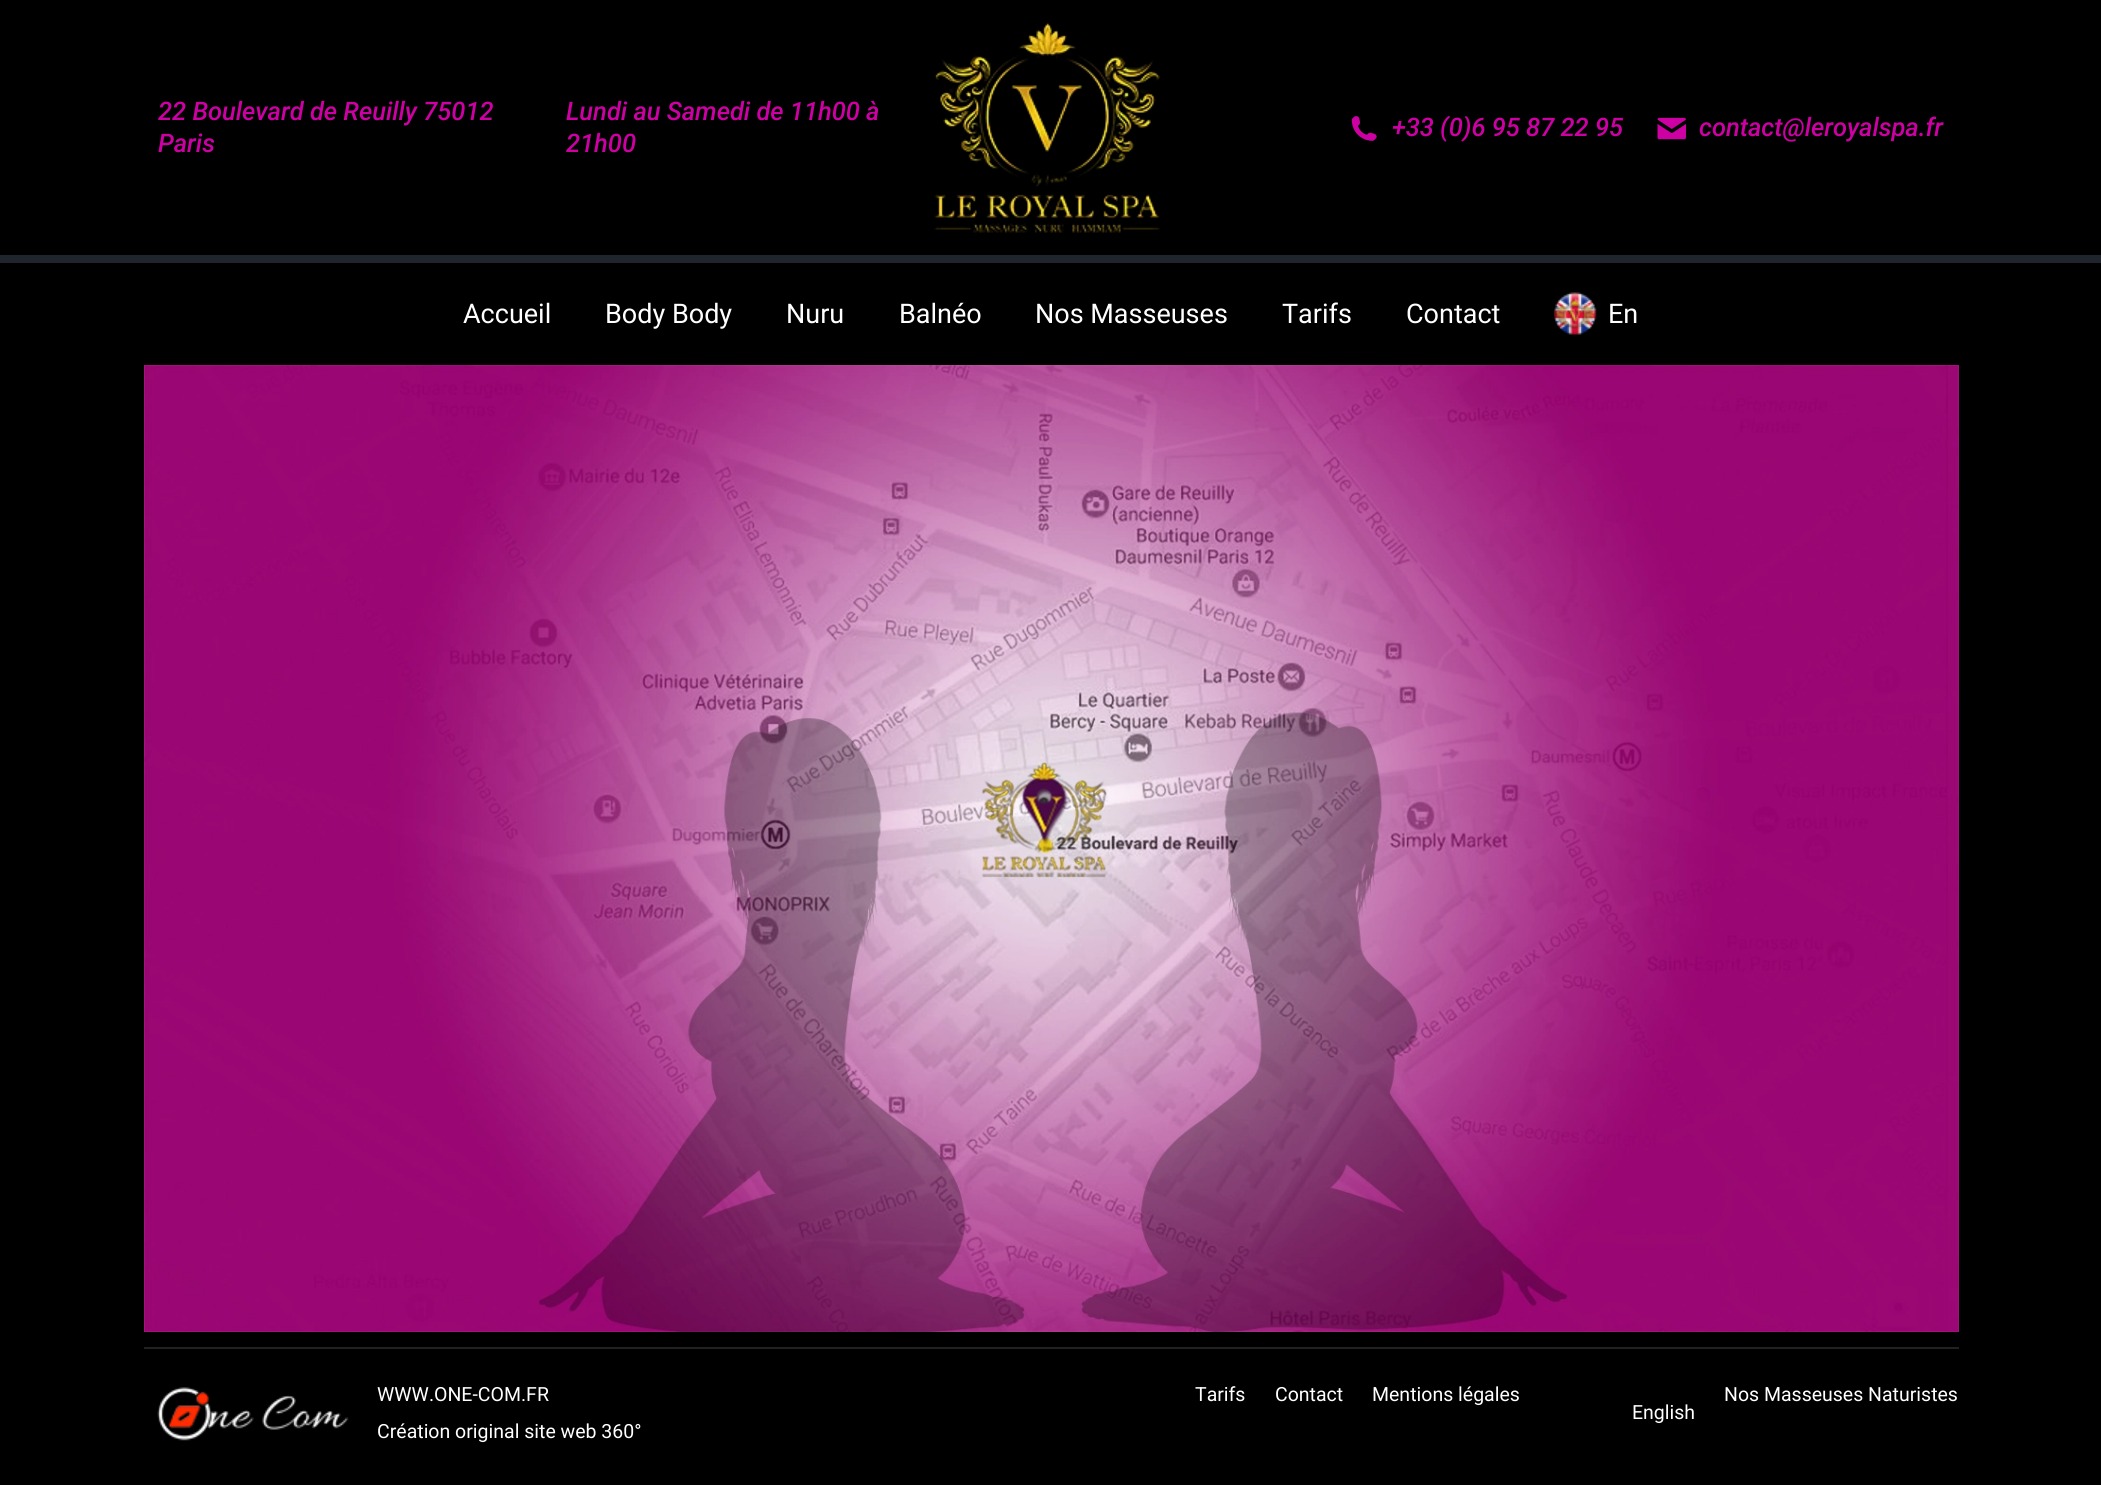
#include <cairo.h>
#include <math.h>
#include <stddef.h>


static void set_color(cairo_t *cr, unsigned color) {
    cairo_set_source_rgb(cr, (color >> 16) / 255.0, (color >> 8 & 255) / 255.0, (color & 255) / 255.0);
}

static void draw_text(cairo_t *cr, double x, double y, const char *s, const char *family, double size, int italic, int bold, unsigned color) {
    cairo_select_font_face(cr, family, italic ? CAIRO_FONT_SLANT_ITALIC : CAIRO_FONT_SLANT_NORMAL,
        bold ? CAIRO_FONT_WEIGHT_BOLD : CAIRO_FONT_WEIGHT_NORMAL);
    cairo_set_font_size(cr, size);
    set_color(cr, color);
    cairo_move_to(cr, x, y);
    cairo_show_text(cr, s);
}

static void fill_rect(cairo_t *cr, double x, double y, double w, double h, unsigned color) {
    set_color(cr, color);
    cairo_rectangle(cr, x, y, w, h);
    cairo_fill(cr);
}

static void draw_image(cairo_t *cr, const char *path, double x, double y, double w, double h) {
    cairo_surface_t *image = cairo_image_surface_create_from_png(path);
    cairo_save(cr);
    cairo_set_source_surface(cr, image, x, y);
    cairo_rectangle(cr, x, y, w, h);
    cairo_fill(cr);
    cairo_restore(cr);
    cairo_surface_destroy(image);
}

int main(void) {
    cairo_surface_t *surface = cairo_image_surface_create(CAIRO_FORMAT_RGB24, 2101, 1485);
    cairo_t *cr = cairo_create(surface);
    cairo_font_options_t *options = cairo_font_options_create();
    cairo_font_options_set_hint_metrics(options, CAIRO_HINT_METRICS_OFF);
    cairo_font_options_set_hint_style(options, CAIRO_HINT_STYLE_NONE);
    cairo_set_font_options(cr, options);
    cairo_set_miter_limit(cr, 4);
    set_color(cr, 0x000000);
    cairo_paint(cr);
    draw_text(cr, 158, 120, "22 Boulevard de Reuilly 75012", "Roboto Medium", 25.5, 1, 0, 0xCC00A3);
    draw_text(cr, 158, 152, "Paris", "Roboto Medium", 25.5, 1, 0, 0xCC00A3);
    draw_text(cr, 566, 120, "Lundi au Samedi de 11h00 à", "Roboto Medium", 25.5, 1, 0, 0xCC00A3);
    draw_text(cr, 566, 152, "21h00", "Roboto Medium", 25.5, 1, 0, 0xCC00A3);
    draw_image(cr, "assets/img1.png", 934, 22, 226, 211);
    draw_image(cr, "assets/img2.png", 1351, 116, 26, 25);
    draw_text(cr, 1392, 136, "+33 (0)6 95 87 22 95", "Roboto Medium", 25.5, 1, 0, 0xCC00A3);
    draw_image(cr, "assets/img3.png", 1657, 117, 29, 23);
    draw_text(cr, 1699, 136, "contact@leroyalspa.fr", "Roboto Medium", 25.5, 1, 0, 0xCC00A3);
    fill_rect(cr, 0, 255, 2101, 8, 0x20242D);
    draw_text(cr, 463, 323, "Accueil", "Roboto", 27, 0, 0, 0xFFFFFF);
    draw_text(cr, 605, 323, "Body Body", "Roboto", 27, 0, 0, 0xFFFFFF);
    draw_text(cr, 786, 323, "Nuru", "Roboto", 27, 0, 0, 0xFFFFFF);
    draw_text(cr, 899, 323, "Balnéo", "Roboto", 27, 0, 0, 0xFFFFFF);
    draw_text(cr, 1035, 323, "Nos Masseuses", "Roboto", 27, 0, 0, 0xFFFFFF);
    draw_text(cr, 1282, 323, "Tarifs", "Roboto", 27, 0, 0, 0xFFFFFF);
    draw_text(cr, 1406, 323, "Contact", "Roboto", 27, 0, 0, 0xFFFFFF);
    draw_image(cr, "assets/img4.png", 1554, 292, 43, 43);
    draw_text(cr, 1608, 323, "En", "Roboto", 27, 0, 0, 0xFFFFFF);
    draw_image(cr, "assets/img5.png", 144, 365, 1815, 967);
    fill_rect(cr, 144, 1347, 1815, 2, 0x212121);
    draw_image(cr, "assets/img6.png", 157, 1387, 192, 54);
    draw_text(cr, 377, 1401, "WWW.ONE-COM.FR", "Roboto", 19.5, 0, 0, 0xFFFFFF);
    draw_text(cr, 377, 1438, "Création original site web 360°", "Roboto", 19.5, 0, 0, 0xFFFFFF);
    draw_text(cr, 1195, 1401, "Tarifs", "Roboto", 19.5, 0, 0, 0xFFFFFF);
    draw_text(cr, 1275, 1401, "Contact", "Roboto", 19.5, 0, 0, 0xFFFFFF);
    draw_text(cr, 1372, 1401, "Mentions légales", "Roboto", 19.5, 0, 0, 0xFFFFFF);
    draw_text(cr, 1724, 1401, "Nos Masseuses Naturistes", "Roboto", 19.5, 0, 0, 0xFFFFFF);
    draw_text(cr, 1632, 1419, "English", "Roboto", 19.5, 0, 0, 0xFFFFFF);
    cairo_surface_write_to_png(surface, "output.png");
    cairo_font_options_destroy(options);
    cairo_destroy(cr);
    cairo_surface_destroy(surface);
    return 0;
}
